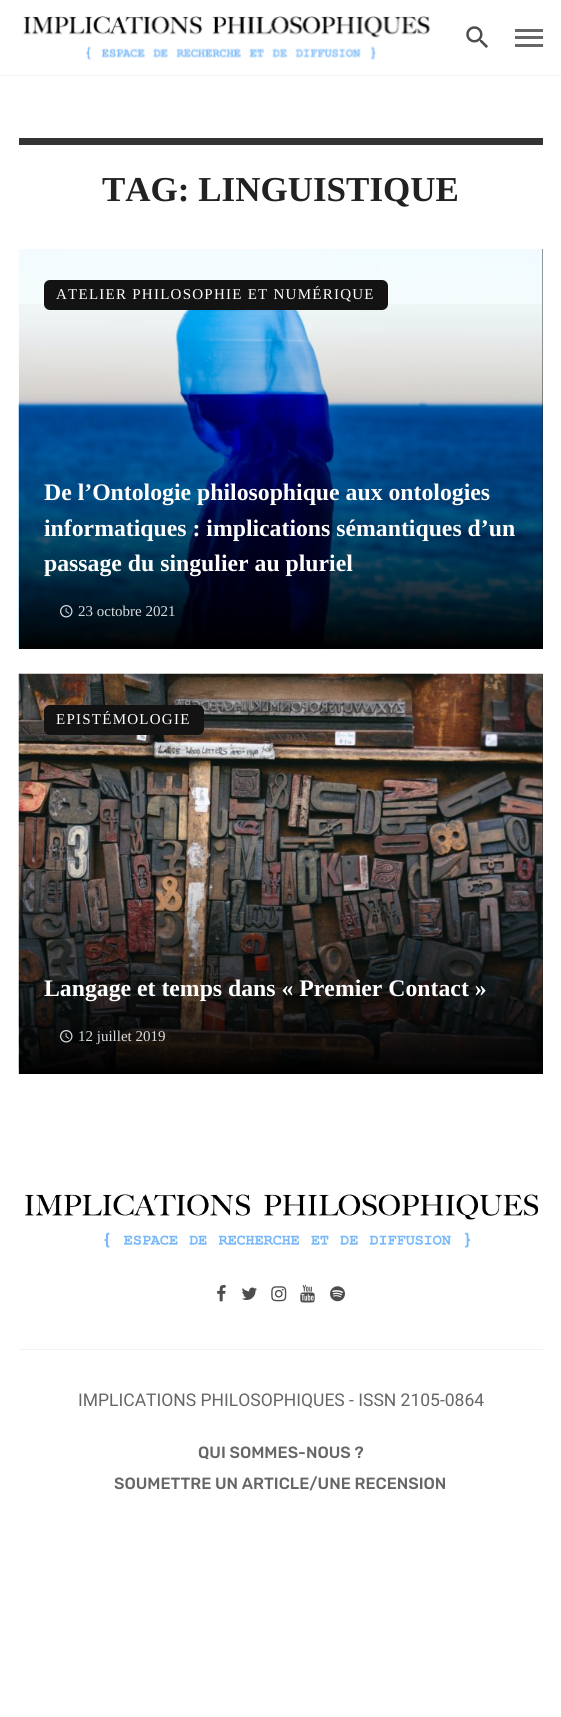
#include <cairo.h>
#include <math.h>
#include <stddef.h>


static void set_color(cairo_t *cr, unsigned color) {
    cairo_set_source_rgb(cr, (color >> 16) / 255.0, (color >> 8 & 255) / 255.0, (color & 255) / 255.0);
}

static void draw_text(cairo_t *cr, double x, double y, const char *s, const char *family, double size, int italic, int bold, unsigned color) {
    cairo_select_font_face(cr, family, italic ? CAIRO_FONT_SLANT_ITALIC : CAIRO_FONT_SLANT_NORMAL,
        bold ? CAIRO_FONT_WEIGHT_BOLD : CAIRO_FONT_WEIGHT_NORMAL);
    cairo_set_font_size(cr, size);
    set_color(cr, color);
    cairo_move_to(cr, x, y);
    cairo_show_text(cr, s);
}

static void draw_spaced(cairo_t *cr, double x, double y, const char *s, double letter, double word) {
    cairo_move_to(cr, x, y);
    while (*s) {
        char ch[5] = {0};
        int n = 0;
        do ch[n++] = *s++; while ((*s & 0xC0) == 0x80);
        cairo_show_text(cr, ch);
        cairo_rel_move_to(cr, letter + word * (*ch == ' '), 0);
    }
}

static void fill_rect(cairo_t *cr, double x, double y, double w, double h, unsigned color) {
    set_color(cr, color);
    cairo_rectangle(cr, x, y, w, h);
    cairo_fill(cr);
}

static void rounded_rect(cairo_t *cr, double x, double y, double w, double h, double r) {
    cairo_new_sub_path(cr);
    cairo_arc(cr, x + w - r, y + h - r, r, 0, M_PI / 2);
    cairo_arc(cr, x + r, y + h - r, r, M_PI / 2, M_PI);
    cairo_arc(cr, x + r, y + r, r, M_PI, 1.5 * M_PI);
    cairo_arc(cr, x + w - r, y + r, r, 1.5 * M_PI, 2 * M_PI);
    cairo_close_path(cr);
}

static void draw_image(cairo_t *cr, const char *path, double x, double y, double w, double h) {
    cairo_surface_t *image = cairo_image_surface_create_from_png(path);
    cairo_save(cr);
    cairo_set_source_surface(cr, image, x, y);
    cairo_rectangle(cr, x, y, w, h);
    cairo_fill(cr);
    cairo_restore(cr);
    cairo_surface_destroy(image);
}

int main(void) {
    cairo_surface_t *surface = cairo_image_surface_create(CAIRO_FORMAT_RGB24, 561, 1717);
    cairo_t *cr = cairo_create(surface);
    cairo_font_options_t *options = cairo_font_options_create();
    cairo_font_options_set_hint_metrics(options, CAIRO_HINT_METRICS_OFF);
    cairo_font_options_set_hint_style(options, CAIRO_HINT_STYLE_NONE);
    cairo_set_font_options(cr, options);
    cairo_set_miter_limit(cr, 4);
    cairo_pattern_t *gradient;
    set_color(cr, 0xFFFFFF);
    cairo_paint(cr);
    fill_rect(cr, 0, 75, 561, 1, 0xF5F5F5);
    draw_image(cr, "assets/img1.png", 23, 16, 408, 44);
    draw_image(cr, "assets/img2.png", 466, 26, 22, 22);
    fill_rect(cr, 515, 36, 28, 3, 0x676767);
    fill_rect(cr, 515, 29, 28, 3, 0x676767);
    fill_rect(cr, 515, 44, 28, 3, 0x676767);
    fill_rect(cr, 19, 138, 524, 7, 0x333333);
    draw_text(cr, 102, 201, "TAG: LINGUISTIQUE", "Liberation Serif", 35, 0, 1, 0x222222);
    fill_rect(cr, 542, 249, 1, 399, 0x333333);
    draw_image(cr, "assets/img3.png", 18, 249, 525, 400);
    set_color(cr, 0x131313);
    rounded_rect(cr, 44, 280, 344, 30, 6);
    cairo_fill(cr);
    cairo_select_font_face(cr, "Liberation Serif", CAIRO_FONT_SLANT_NORMAL, CAIRO_FONT_WEIGHT_NORMAL);
    cairo_set_font_size(cr, 15);
    set_color(cr, 0xFFFFFF);
    draw_spaced(cr, 56, 299, "ATELIER PHILOSOPHIE ET NUMÉRIQUE", 1.25, 0);
    gradient = cairo_pattern_create_linear(281, 649, 281, 253);
    cairo_pattern_add_color_stop_rgba(gradient, 0, 0, 0, 0, 1);
    cairo_pattern_add_color_stop_rgba(gradient, 0.05, 0, 0, 0, 0.92);
    cairo_pattern_add_color_stop_rgba(gradient, 0.11, 0, 0, 0, 0.83);
    cairo_pattern_add_color_stop_rgba(gradient, 0.16, 0, 0, 0, 0.75);
    cairo_pattern_add_color_stop_rgba(gradient, 0.21, 0, 0, 0, 0.67);
    cairo_pattern_add_color_stop_rgba(gradient, 0.27, 0, 0, 0, 0.59);
    cairo_pattern_add_color_stop_rgba(gradient, 0.33, 0, 0, 0, 0.51);
    cairo_pattern_add_color_stop_rgba(gradient, 0.38, 0, 0, 0, 0.43);
    cairo_pattern_add_color_stop_rgba(gradient, 0.45, 0, 0, 0, 0.36);
    cairo_pattern_add_color_stop_rgba(gradient, 0.51, 0, 0, 0, 0.28);
    cairo_pattern_add_color_stop_rgba(gradient, 0.58, 0, 0, 0, 0.21);
    cairo_pattern_add_color_stop_rgba(gradient, 0.65, 0, 0, 0, 0.14);
    cairo_pattern_add_color_stop_rgba(gradient, 0.73, 0, 0, 0, 0.09);
    cairo_pattern_add_color_stop_rgba(gradient, 0.81, 0, 0, 0, 0.04);
    cairo_pattern_add_color_stop_rgba(gradient, 0.91, 0, 0, 0, 0.01);
    cairo_pattern_add_color_stop_rgba(gradient, 1, 0, 0, 0, 0);
    cairo_set_source(cr, gradient);
    cairo_pattern_destroy(gradient);
    cairo_rectangle(cr, 19, 304, 524, 345);
    cairo_fill(cr);
    draw_text(cr, 44, 500, "De l’Ontologie philosophique aux ontologies", "Liberation Serif", 23.75, 0, 1, 0xFFFFFF);
    draw_text(cr, 44, 536, "informatiques : implications sémantiques d’un", "Liberation Serif", 23.75, 0, 1, 0xFFFFFF);
    draw_text(cr, 44, 571, "passage du singulier au pluriel", "Liberation Serif", 23.75, 0, 1, 0xFFFFFF);
    draw_image(cr, "assets/img4.png", 60, 605, 13, 13);
    draw_text(cr, 78, 616, "23 octobre 2021", "Liberation Serif", 15, 0, 0, 0xD9DCDE);
    fill_rect(cr, 542, 674, 1, 399, 0x333333);
    draw_image(cr, "assets/img5.png", 18, 673, 525, 401);
    set_color(cr, 0x131313);
    rounded_rect(cr, 44, 705, 160, 30, 6);
    cairo_fill(cr);
    set_color(cr, 0xFFFFFF);
    draw_spaced(cr, 56, 724, "EPISTÉMOLOGIE", 1.25, 0);
    gradient = cairo_pattern_create_linear(281, 1074, 281, 820);
    cairo_pattern_add_color_stop_rgba(gradient, 0, 0, 0, 0, 1);
    cairo_pattern_add_color_stop_rgba(gradient, 0.05, 0, 0, 0, 0.92);
    cairo_pattern_add_color_stop_rgba(gradient, 0.11, 0, 0, 0, 0.83);
    cairo_pattern_add_color_stop_rgba(gradient, 0.16, 0, 0, 0, 0.75);
    cairo_pattern_add_color_stop_rgba(gradient, 0.21, 0, 0, 0, 0.67);
    cairo_pattern_add_color_stop_rgba(gradient, 0.27, 0, 0, 0, 0.59);
    cairo_pattern_add_color_stop_rgba(gradient, 0.33, 0, 0, 0, 0.51);
    cairo_pattern_add_color_stop_rgba(gradient, 0.38, 0, 0, 0, 0.43);
    cairo_pattern_add_color_stop_rgba(gradient, 0.45, 0, 0, 0, 0.36);
    cairo_pattern_add_color_stop_rgba(gradient, 0.51, 0, 0, 0, 0.28);
    cairo_pattern_add_color_stop_rgba(gradient, 0.58, 0, 0, 0, 0.21);
    cairo_pattern_add_color_stop_rgba(gradient, 0.65, 0, 0, 0, 0.14);
    cairo_pattern_add_color_stop_rgba(gradient, 0.73, 0, 0, 0, 0.09);
    cairo_pattern_add_color_stop_rgba(gradient, 0.81, 0, 0, 0, 0.04);
    cairo_pattern_add_color_stop_rgba(gradient, 0.91, 0, 0, 0, 0.01);
    cairo_pattern_add_color_stop_rgba(gradient, 1, 0, 0, 0, 0);
    cairo_set_source(cr, gradient);
    cairo_pattern_destroy(gradient);
    cairo_rectangle(cr, 19, 853, 524, 221);
    cairo_fill(cr);
    draw_text(cr, 44, 996, "Langage et temps dans « Premier Contact »", "Liberation Serif", 23.75, 0, 1, 0xFFFFFF);
    draw_image(cr, "assets/img6.png", 60, 1030, 13, 13);
    draw_text(cr, 78, 1041, "12 juillet 2019", "Liberation Serif", 15, 0, 0, 0xD9DCDE);
    draw_image(cr, "assets/img7.png", 25, 1194, 514, 54);
    draw_image(cr, "assets/img8.png", 217, 1285, 9, 17);
    draw_image(cr, "assets/img9.png", 242, 1287, 15, 13);
    draw_image(cr, "assets/img10.png", 271, 1286, 16, 16);
    draw_image(cr, "assets/img11.png", 300, 1285, 15, 18);
    draw_image(cr, "assets/img12.png", 330, 1286, 15, 16);
    fill_rect(cr, 19, 1349, 524, 1, 0xF2F2F2);
    draw_text(cr, 78, 1406, "IMPLICATIONS PHILOSOPHIQUES - ISSN 2105-0864", "Roboto", 17.5, 0, 0, 0x666666);
    draw_text(cr, 198, 1458, "QUI SOMMES-NOUS ?", "Rubik Medium", 16.25, 0, 0, 0x666666);
    draw_text(cr, 114, 1489, "SOUMETTRE UN ARTICLE/UNE RECENSION", "Rubik Medium", 16.25, 0, 0, 0x666666);
    cairo_surface_write_to_png(surface, "output.png");
    cairo_font_options_destroy(options);
    cairo_destroy(cr);
    cairo_surface_destroy(surface);
    return 0;
}
